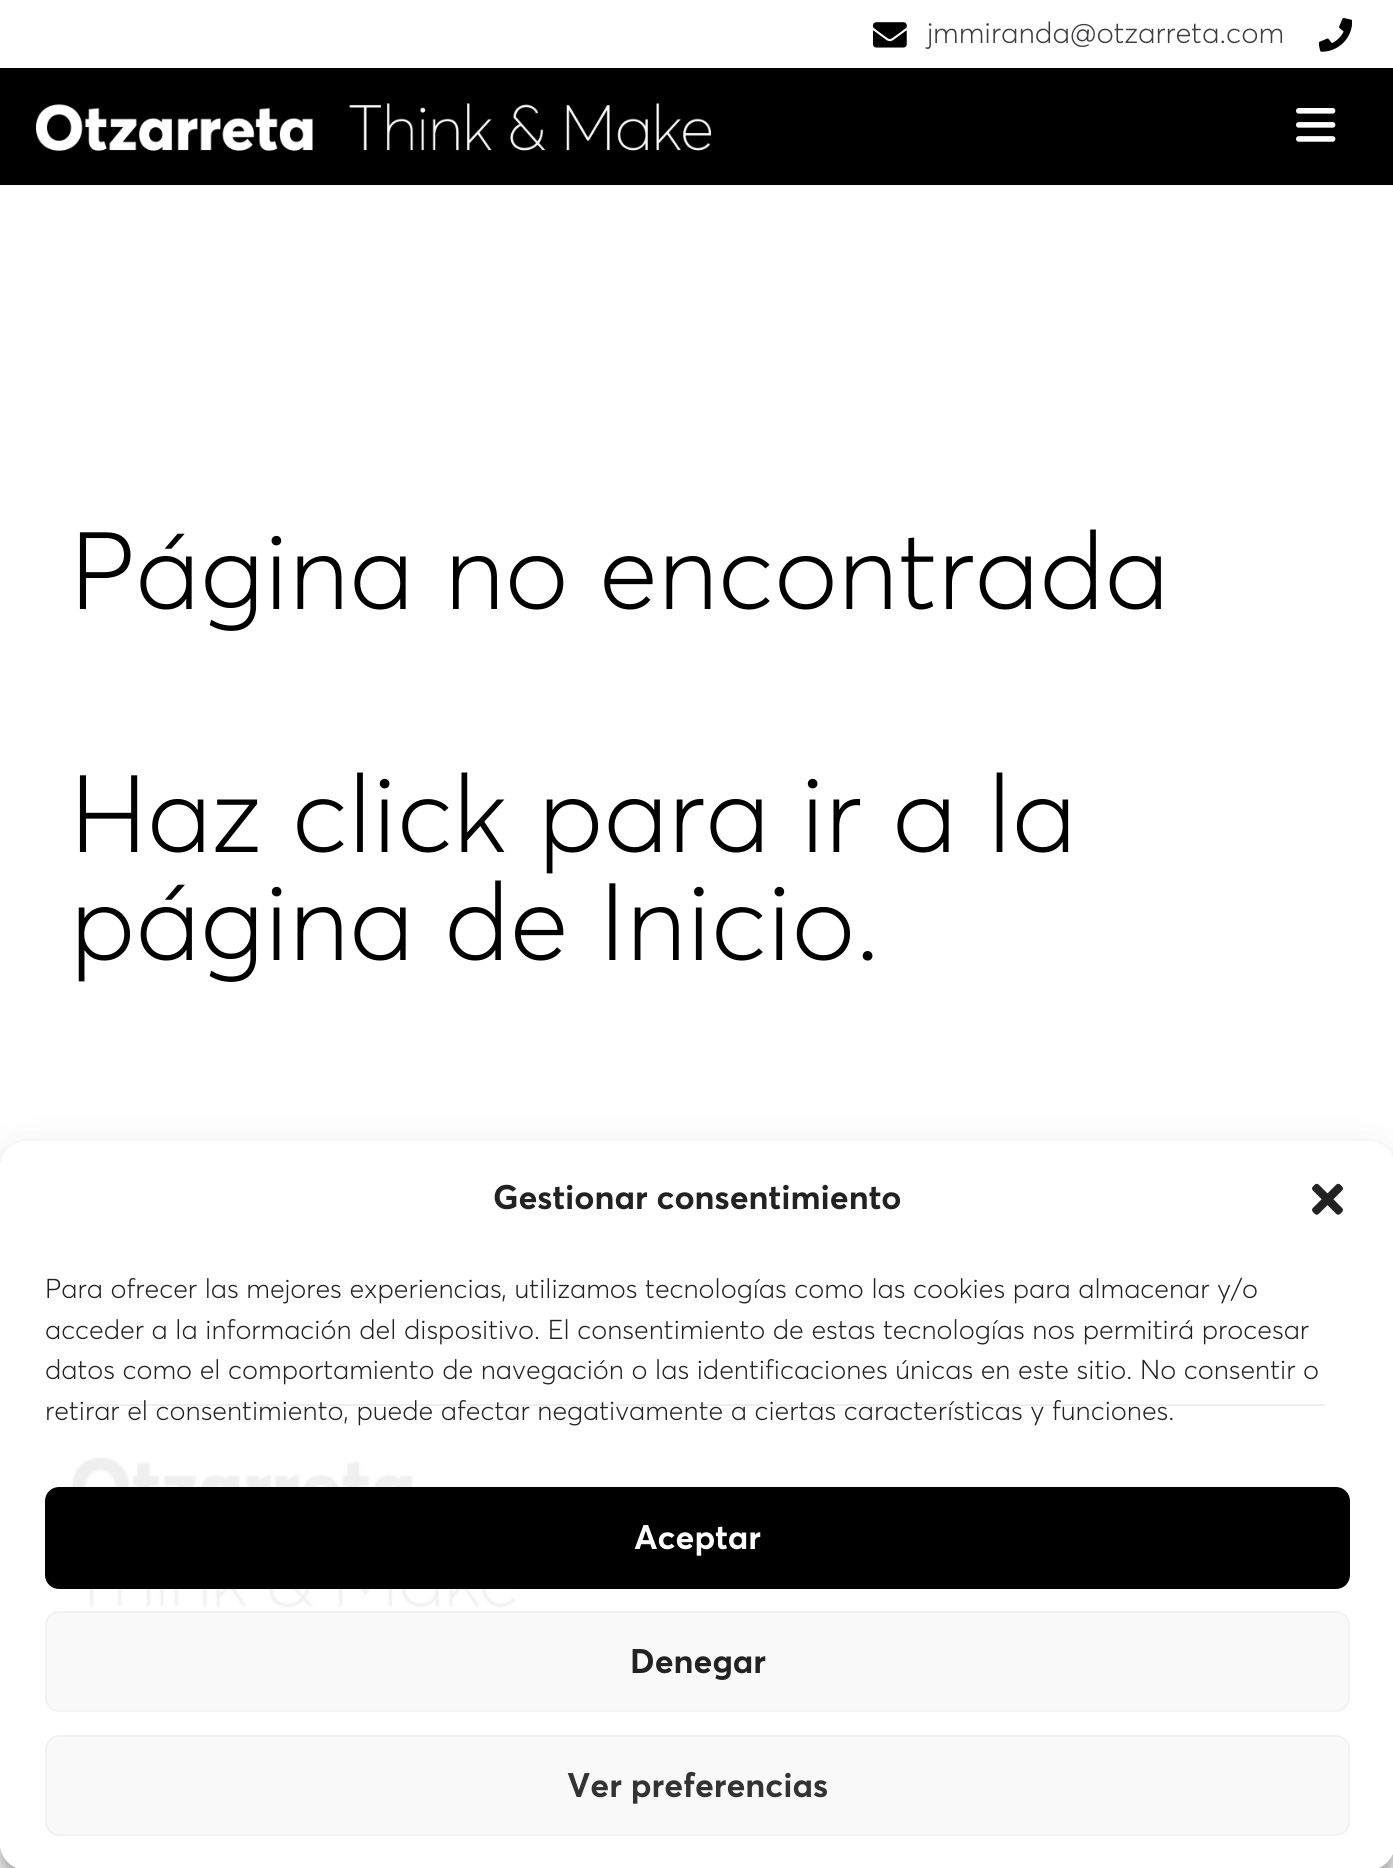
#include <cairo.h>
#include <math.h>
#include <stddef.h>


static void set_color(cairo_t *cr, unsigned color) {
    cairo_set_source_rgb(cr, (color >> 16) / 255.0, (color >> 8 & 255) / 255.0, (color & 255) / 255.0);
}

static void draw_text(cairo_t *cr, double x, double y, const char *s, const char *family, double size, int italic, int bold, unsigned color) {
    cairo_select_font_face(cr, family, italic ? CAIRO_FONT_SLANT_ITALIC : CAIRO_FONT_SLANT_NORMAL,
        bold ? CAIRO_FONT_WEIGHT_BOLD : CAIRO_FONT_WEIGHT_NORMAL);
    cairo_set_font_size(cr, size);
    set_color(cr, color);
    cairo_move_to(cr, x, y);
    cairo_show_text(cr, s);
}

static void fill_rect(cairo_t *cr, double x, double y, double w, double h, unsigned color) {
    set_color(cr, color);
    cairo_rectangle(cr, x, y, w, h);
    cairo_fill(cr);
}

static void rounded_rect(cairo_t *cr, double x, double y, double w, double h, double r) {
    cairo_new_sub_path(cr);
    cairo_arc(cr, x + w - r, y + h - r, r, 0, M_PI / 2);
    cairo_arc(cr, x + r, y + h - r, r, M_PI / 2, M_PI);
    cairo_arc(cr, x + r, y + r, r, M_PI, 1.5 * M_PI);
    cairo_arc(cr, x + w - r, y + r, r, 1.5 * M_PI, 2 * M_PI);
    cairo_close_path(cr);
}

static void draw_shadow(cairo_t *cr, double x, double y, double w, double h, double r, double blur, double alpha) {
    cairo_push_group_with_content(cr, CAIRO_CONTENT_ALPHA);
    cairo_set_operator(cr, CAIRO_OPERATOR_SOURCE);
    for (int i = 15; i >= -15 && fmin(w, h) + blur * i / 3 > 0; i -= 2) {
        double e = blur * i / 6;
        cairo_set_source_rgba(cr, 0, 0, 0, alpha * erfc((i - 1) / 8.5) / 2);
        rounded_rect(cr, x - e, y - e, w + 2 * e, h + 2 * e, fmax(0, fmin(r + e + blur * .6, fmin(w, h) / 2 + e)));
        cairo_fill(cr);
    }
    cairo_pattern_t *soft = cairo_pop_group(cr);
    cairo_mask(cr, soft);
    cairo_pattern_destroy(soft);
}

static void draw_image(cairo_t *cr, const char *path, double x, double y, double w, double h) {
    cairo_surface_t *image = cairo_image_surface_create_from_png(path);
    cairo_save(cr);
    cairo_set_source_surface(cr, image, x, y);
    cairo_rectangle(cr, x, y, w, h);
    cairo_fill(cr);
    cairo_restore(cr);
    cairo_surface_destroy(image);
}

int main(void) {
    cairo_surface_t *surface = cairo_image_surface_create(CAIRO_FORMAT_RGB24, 1393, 1868);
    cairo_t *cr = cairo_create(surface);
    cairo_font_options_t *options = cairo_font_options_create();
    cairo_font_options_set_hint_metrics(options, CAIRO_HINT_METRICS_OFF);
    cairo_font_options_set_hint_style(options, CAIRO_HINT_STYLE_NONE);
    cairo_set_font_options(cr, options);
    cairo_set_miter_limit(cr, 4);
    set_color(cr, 0xFFFFFF);
    cairo_paint(cr);
    draw_image(cr, "assets/img1.png", 873, 22, 34, 26);
    draw_text(cr, 927, 43, "jmmiranda@otzarreta.com", "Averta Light", 29.25, 0, 0, 0x3D3B3F);
    draw_image(cr, "assets/img2.png", 1319, 18, 33, 34);
    fill_rect(cr, 0, 68, 1393, 117, 0x000000);
    draw_image(cr, "assets/img3.png", 36, 103, 675, 48);
    draw_image(cr, "assets/img4.png", 1296, 108, 40, 34);
    draw_text(cr, 70, 609, "Página no encontrada", "Averta Light", 108, 0, 0, 0x000000);
    draw_text(cr, 70, 852, "Haz click para ir a la", "Averta Light", 108, 0, 0, 0x000000);
    draw_text(cr, 70, 960, "página de Inicio.", "Averta Light", 108, 0, 0, 0x000000);
    fill_rect(cr, 70, 1404, 1255, 2, 0x000000);
    draw_image(cr, "assets/img6.png", 70, 1456, 450, 153);
    cairo_save(cr);
    cairo_set_fill_rule(cr, CAIRO_FILL_RULE_EVEN_ODD);
    cairo_new_path(cr);
    cairo_move_to(cr, 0, 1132);
    cairo_line_to(cr, 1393, 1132);
    cairo_line_to(cr, 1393, 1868);
    cairo_line_to(cr, 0, 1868);
    cairo_close_path(cr);
    cairo_move_to(cr, 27, 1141);
    cairo_line_to(cr, 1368, 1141);
    cairo_curve_to(cr, 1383, 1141, 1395, 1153, 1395, 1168);
    cairo_line_to(cr, 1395, 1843);
    cairo_curve_to(cr, 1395, 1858, 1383, 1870, 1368, 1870);
    cairo_line_to(cr, 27, 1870);
    cairo_curve_to(cr, 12, 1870, 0, 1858, 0, 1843);
    cairo_line_to(cr, 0, 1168);
    cairo_curve_to(cr, 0, 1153, 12, 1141, 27, 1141);
    cairo_close_path(cr);
    cairo_clip(cr);
    set_color(cr, 0x000000);
    draw_shadow(cr, 0, 1154, 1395, 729, 27, 7, 0.23);
    cairo_restore(cr);
    cairo_save(cr);
    cairo_set_fill_rule(cr, CAIRO_FILL_RULE_EVEN_ODD);
    cairo_new_path(cr);
    cairo_move_to(cr, 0, 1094);
    cairo_line_to(cr, 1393, 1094);
    cairo_line_to(cr, 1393, 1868);
    cairo_line_to(cr, 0, 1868);
    cairo_close_path(cr);
    cairo_move_to(cr, 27, 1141);
    cairo_line_to(cr, 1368, 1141);
    cairo_curve_to(cr, 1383, 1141, 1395, 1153, 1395, 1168);
    cairo_line_to(cr, 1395, 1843);
    cairo_curve_to(cr, 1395, 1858, 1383, 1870, 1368, 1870);
    cairo_line_to(cr, 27, 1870);
    cairo_curve_to(cr, 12, 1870, 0, 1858, 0, 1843);
    cairo_line_to(cr, 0, 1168);
    cairo_curve_to(cr, 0, 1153, 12, 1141, 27, 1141);
    cairo_close_path(cr);
    cairo_clip(cr);
    set_color(cr, 0x000000);
    draw_shadow(cr, 0, 1163, 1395, 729, 27, 22.5, 0.19);
    cairo_restore(cr);
    cairo_set_source_rgba(cr, 1, 1, 1, 0.93);
    rounded_rect(cr, 0, 1141, 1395, 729, 27);
    cairo_fill(cr);
    draw_text(cr, 493, 1209, "Gestionar consentimiento", "Averta", 33.75, 0, 1, 0x222222);
    draw_image(cr, "assets/img5.png", 1312, 1183, 31, 32);
    draw_text(cr, 45, 1298, "Para ofrecer las mejores experiencias, utilizamos tecnologías como las cookies para almacenar y/o", "Averta Light", 27, 0, 0, 0x222222);
    draw_text(cr, 45, 1339, "acceder a la información del dispositivo. El consentimiento de estas tecnologías nos permitirá procesar", "Averta Light", 27, 0, 0, 0x222222);
    draw_text(cr, 45, 1379, "datos como el comportamiento de navegación o las identificaciones únicas en este sitio. No consentir o", "Averta Light", 27, 0, 0, 0x222222);
    draw_text(cr, 45, 1420, "retirar el consentimiento, puede afectar negativamente a ciertas características y funciones.", "Averta Light", 27, 0, 0, 0x222222);
    set_color(cr, 0x000000);
    rounded_rect(cr, 46, 1488, 1303, 100, 13);
    cairo_fill_preserve(cr);
    cairo_stroke(cr);
    draw_text(cr, 634, 1549, "Aceptar", "Averta", 33.75, 0, 1, 0xFFFFFF);
    set_color(cr, 0xF9F9F9);
    rounded_rect(cr, 46, 1612, 1303, 99, 13);
    cairo_fill_preserve(cr);
    set_color(cr, 0xF2F2F2);
    cairo_stroke(cr);
    draw_text(cr, 630, 1673, "Denegar", "Averta", 33.75, 0, 1, 0x222222);
    set_color(cr, 0xF9F9F9);
    rounded_rect(cr, 46, 1736, 1303, 99, 13);
    cairo_fill_preserve(cr);
    set_color(cr, 0xF2F2F2);
    cairo_stroke(cr);
    draw_text(cr, 567, 1797, "Ver preferencias", "Averta", 33.75, 0, 1, 0x333333);
    cairo_surface_write_to_png(surface, "output.png");
    cairo_font_options_destroy(options);
    cairo_destroy(cr);
    cairo_surface_destroy(surface);
    return 0;
}
